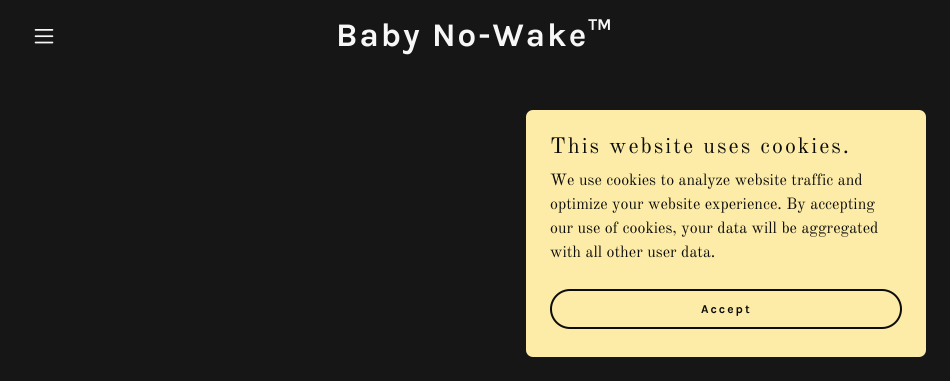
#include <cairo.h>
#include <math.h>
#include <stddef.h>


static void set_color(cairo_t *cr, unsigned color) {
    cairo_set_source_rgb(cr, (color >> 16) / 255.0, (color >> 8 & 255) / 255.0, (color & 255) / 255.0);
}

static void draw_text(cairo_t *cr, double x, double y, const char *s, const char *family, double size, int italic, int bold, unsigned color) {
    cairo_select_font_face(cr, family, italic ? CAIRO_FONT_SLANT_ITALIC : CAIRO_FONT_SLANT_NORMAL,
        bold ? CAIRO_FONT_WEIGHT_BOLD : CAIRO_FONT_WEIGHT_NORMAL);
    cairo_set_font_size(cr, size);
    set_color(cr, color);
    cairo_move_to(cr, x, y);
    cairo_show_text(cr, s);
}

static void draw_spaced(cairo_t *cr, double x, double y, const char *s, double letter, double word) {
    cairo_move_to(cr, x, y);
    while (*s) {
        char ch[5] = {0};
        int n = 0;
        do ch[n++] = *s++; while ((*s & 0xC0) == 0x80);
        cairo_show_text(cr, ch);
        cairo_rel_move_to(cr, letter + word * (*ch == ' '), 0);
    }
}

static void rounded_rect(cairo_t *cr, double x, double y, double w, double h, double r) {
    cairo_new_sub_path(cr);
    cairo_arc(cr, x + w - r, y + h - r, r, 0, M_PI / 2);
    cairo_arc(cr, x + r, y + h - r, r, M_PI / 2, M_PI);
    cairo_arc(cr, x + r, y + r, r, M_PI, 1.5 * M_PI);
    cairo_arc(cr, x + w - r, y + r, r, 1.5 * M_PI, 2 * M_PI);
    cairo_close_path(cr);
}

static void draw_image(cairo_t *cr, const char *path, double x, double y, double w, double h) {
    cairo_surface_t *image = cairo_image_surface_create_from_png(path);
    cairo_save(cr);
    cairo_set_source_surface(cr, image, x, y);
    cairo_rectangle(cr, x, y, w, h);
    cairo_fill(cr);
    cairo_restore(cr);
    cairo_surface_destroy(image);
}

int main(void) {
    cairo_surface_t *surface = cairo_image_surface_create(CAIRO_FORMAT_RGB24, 950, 381);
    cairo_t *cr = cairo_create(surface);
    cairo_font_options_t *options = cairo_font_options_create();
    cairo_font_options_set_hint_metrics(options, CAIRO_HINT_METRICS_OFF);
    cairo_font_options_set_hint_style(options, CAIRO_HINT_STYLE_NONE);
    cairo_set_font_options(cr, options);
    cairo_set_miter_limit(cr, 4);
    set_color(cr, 0x161616);
    cairo_paint(cr);
    draw_image(cr, "assets/img1.png", 34, 29, 20, 15);
    cairo_select_font_face(cr, "Karla", CAIRO_FONT_SLANT_NORMAL, CAIRO_FONT_WEIGHT_BOLD);
    cairo_set_font_size(cr, 33);
    set_color(cr, 0xF7F7F7);
    draw_spaced(cr, 336, 46, "Baby No-Wake™", 2, 0);
    set_color(cr, 0xFCECA7);
    rounded_rect(cr, 526, 110, 400, 247, 7);
    cairo_fill(cr);
    cairo_select_font_face(cr, "Old Standard TT", CAIRO_FONT_SLANT_NORMAL, CAIRO_FONT_WEIGHT_NORMAL);
    cairo_set_font_size(cr, 22);
    set_color(cr, 0x0C0C0B);
    draw_spaced(cr, 550, 153, "This website uses cookies.", 2, 0);
    draw_text(cr, 550, 185, "We use cookies to analyze website traffic and", "Old Standard TT", 16, 0, 0, 0x0C0C0B);
    draw_text(cr, 550, 209, "optimize your website experience. By accepting", "Old Standard TT", 16, 0, 0, 0x0C0C0B);
    draw_text(cr, 550, 233, "our use of cookies, your data will be aggregated", "Old Standard TT", 16, 0, 0, 0x0C0C0B);
    draw_text(cr, 550, 257, "with all other user data.", "Old Standard TT", 16, 0, 0, 0x0C0C0B);
    rounded_rect(cr, 551, 290, 350, 38, 19);
    cairo_stroke(cr);
    cairo_select_font_face(cr, "Karla", CAIRO_FONT_SLANT_NORMAL, CAIRO_FONT_WEIGHT_BOLD);
    cairo_set_font_size(cr, 12);
    draw_spaced(cr, 701, 313, "Accept", 2, 0);
    cairo_surface_write_to_png(surface, "output.png");
    cairo_font_options_destroy(options);
    cairo_destroy(cr);
    cairo_surface_destroy(surface);
    return 0;
}
